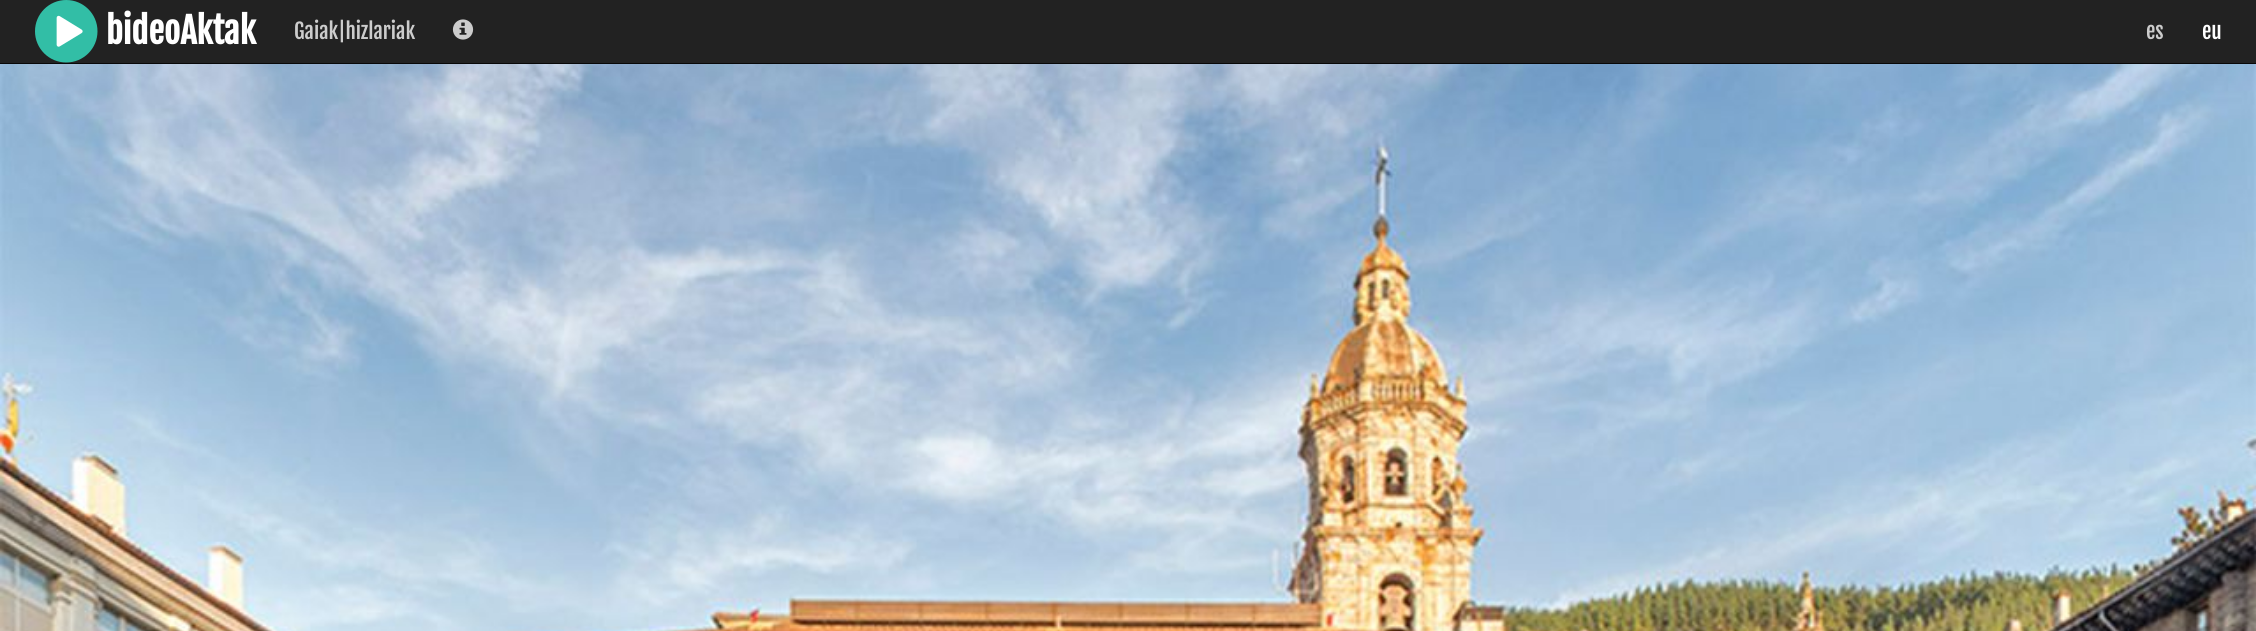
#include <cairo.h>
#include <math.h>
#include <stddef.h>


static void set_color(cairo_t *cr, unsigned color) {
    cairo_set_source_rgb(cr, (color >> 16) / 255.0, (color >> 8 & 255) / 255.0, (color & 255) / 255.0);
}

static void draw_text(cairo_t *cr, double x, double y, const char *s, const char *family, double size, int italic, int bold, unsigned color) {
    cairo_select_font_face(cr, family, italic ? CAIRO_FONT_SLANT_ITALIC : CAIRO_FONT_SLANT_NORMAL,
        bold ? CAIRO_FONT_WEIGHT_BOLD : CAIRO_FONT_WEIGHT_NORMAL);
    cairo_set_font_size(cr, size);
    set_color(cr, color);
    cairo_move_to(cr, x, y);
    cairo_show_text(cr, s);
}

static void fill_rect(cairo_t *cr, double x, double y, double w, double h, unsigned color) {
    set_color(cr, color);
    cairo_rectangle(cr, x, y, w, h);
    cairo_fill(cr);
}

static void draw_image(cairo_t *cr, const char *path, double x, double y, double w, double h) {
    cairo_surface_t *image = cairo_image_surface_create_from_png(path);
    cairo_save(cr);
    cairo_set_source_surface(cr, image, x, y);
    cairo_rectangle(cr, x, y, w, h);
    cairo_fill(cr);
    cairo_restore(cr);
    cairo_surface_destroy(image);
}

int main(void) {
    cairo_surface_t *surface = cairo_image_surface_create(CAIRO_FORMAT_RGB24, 2256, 631);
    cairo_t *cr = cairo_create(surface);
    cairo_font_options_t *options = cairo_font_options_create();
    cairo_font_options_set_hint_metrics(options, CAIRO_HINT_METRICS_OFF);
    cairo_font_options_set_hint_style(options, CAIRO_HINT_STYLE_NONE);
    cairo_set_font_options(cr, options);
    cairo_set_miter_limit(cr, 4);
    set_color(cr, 0xFFFFFF);
    cairo_paint(cr);
    fill_rect(cr, 0, 0, 2256, 63, 0x222222);
    fill_rect(cr, 0, 63, 2256, 1, 0x080808);
    draw_image(cr, "assets/img1.png", 35, 0, 63, 63);
    draw_text(cr, 106, 44, "bideoAktak", "Fjalla One", 35, 0, 1, 0xFFFFFF);
    draw_text(cr, 294, 39, "Gaiak|hizlariak", "Fjalla One", 21, 0, 0, 0xCCCCCC);
    draw_image(cr, "assets/img2.png", 452, 19, 22, 21);
    draw_text(cr, 2146, 39, "es", "Fjalla One", 21, 0, 0, 0xCCCCCC);
    draw_text(cr, 2202, 39, "eu", "Fjalla One", 21, 0, 0, 0xFFFFFF);
    draw_image(cr, "assets/img3.png", 0, 64, 2256, 567);
    cairo_surface_write_to_png(surface, "output.png");
    cairo_font_options_destroy(options);
    cairo_destroy(cr);
    cairo_surface_destroy(surface);
    return 0;
}
